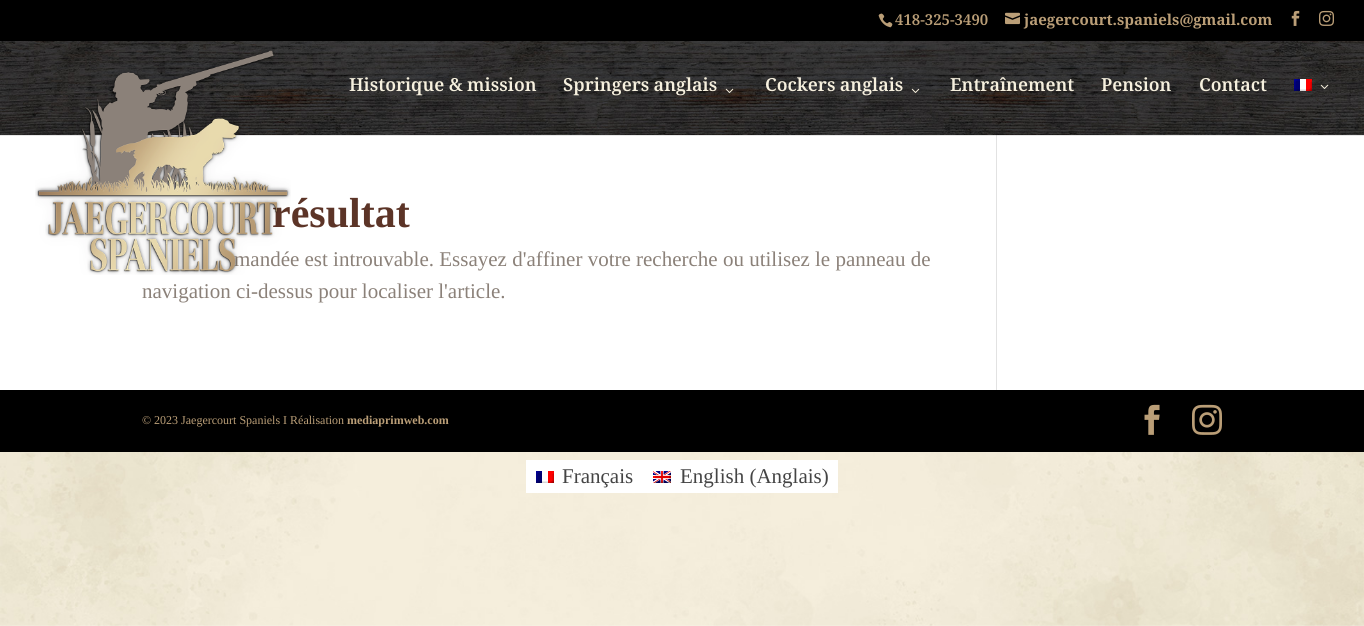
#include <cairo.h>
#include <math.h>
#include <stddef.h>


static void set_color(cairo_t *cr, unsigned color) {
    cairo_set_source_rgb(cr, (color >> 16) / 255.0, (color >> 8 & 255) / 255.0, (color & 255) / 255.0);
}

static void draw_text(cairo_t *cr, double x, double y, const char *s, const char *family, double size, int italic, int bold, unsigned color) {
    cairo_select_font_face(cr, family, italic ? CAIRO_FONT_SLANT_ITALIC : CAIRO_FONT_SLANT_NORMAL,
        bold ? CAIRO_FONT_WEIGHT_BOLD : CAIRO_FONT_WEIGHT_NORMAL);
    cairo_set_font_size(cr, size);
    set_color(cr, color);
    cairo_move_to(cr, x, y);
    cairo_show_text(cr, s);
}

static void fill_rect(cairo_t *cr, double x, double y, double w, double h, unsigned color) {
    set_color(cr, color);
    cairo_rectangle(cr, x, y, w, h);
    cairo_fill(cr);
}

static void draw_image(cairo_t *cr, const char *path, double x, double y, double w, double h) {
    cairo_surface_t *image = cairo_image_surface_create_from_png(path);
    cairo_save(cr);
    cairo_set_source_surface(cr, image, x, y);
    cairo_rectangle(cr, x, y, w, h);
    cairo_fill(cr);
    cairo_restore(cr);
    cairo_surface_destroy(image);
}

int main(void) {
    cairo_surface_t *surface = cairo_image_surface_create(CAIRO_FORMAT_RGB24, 1364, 626);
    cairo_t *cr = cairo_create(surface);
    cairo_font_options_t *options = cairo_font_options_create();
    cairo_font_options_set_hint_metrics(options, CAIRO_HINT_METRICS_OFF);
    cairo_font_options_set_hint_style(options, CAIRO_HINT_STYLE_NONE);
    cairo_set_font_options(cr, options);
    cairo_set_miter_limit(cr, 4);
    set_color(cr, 0xFFFFFF);
    cairo_paint(cr);
    draw_image(cr, "assets/img1.png", 0, 452, 1364, 174);
    fill_rect(cr, 0, 0, 1364, 41, 0x000000);
    draw_image(cr, "assets/img2.png", 878, 13, 15, 15);
    draw_text(cr, 895, 25, "418-325-3490", "Noto Serif Thai SemiBold", 15, 0, 0, 0xBA9E77);
    draw_image(cr, "assets/img3.png", 1005, 12, 15, 13);
    draw_text(cr, 1024, 25, "jaegercourt.spaniels@gmail.com", "Noto Serif Thai", 15, 0, 1, 0xBA9E77);
    draw_image(cr, "assets/img4.png", 1291, 10, 9, 16);
    draw_image(cr, "assets/img5.png", 1319, 10, 15, 16);
    fill_rect(cr, 996, 134, 1, 256, 0xE2E2E2);
    cairo_set_source_rgba(cr, 0, 0, 0, 0.1);
    cairo_rectangle(cr, 0, 135, 1364, 1);
    cairo_fill(cr);
    draw_image(cr, "assets/img6.png", 0, 41, 1364, 94);
    draw_text(cr, 272, 227, "résultat", "Tinos", 42, 0, 1, 0x5C3427);
    draw_text(cr, 234, 266, "mandée est introuvable. Essayez d'affiner votre recherche ou utilisez le panneau de", "Tinos", 21, 0, 0, 0x8B8179);
    draw_image(cr, "assets/img7.png", 35, 49, 256, 226);
    draw_text(cr, 349, 91, "Historique & mission", "Noto Serif Kannada SemiBold", 18, 0, 0, 0xF6F0DE);
    draw_text(cr, 563, 91, "Springers anglais", "Noto Serif Kannada SemiBold", 18, 0, 0, 0xF6F0DE);
    draw_image(cr, "assets/img8.png", 725, 88, 9, 5);
    draw_text(cr, 765, 91, "Cockers anglais", "Noto Serif Kannada SemiBold", 18, 0, 0, 0xF6F0DE);
    draw_image(cr, "assets/img9.png", 911, 88, 9, 5);
    draw_text(cr, 950, 91, "Entraînement", "Noto Serif Kannada SemiBold", 18, 0, 0, 0xF6F0DE);
    draw_text(cr, 1101, 91, "Pension", "Noto Serif Kannada SemiBold", 18, 0, 0, 0xF6F0DE);
    draw_text(cr, 1199, 91, "Contact", "Noto Serif Kannada SemiBold", 18, 0, 0, 0xF6F0DE);
    draw_image(cr, "assets/img10.png", 1294, 79, 18, 12);
    draw_image(cr, "assets/img11.png", 1320, 84, 9, 5);
    draw_text(cr, 142, 298, "navigation ci-dessus pour localiser l'article.", "Tinos", 21, 0, 0, 0x8B8179);
    fill_rect(cr, 0, 390, 1364, 62, 0x000000);
    draw_text(cr, 142, 424, "© 2023 Jaegercourt Spaniels I Réalisation", "Tinos", 12, 0, 0, 0xBA9E77);
    draw_text(cr, 347, 424, "mediaprimweb.com", "Tinos", 12, 0, 1, 0xBA9E77);
    draw_image(cr, "assets/img12.png", 1144, 404, 16, 31);
    draw_image(cr, "assets/img13.png", 1192, 404, 30, 31);
    fill_rect(cr, 526, 460, 312, 33, 0xFFFFFF);
    draw_image(cr, "assets/img10.png", 536, 471, 18, 12);
    draw_text(cr, 562, 483, "Français", "Tinos", 21, 0, 0, 0x444444);
    draw_image(cr, "assets/img14.png", 653, 471, 18, 12);
    draw_text(cr, 680, 483, "English (Anglais)", "Tinos", 21, 0, 0, 0x444444);
    cairo_surface_write_to_png(surface, "output.png");
    cairo_font_options_destroy(options);
    cairo_destroy(cr);
    cairo_surface_destroy(surface);
    return 0;
}
